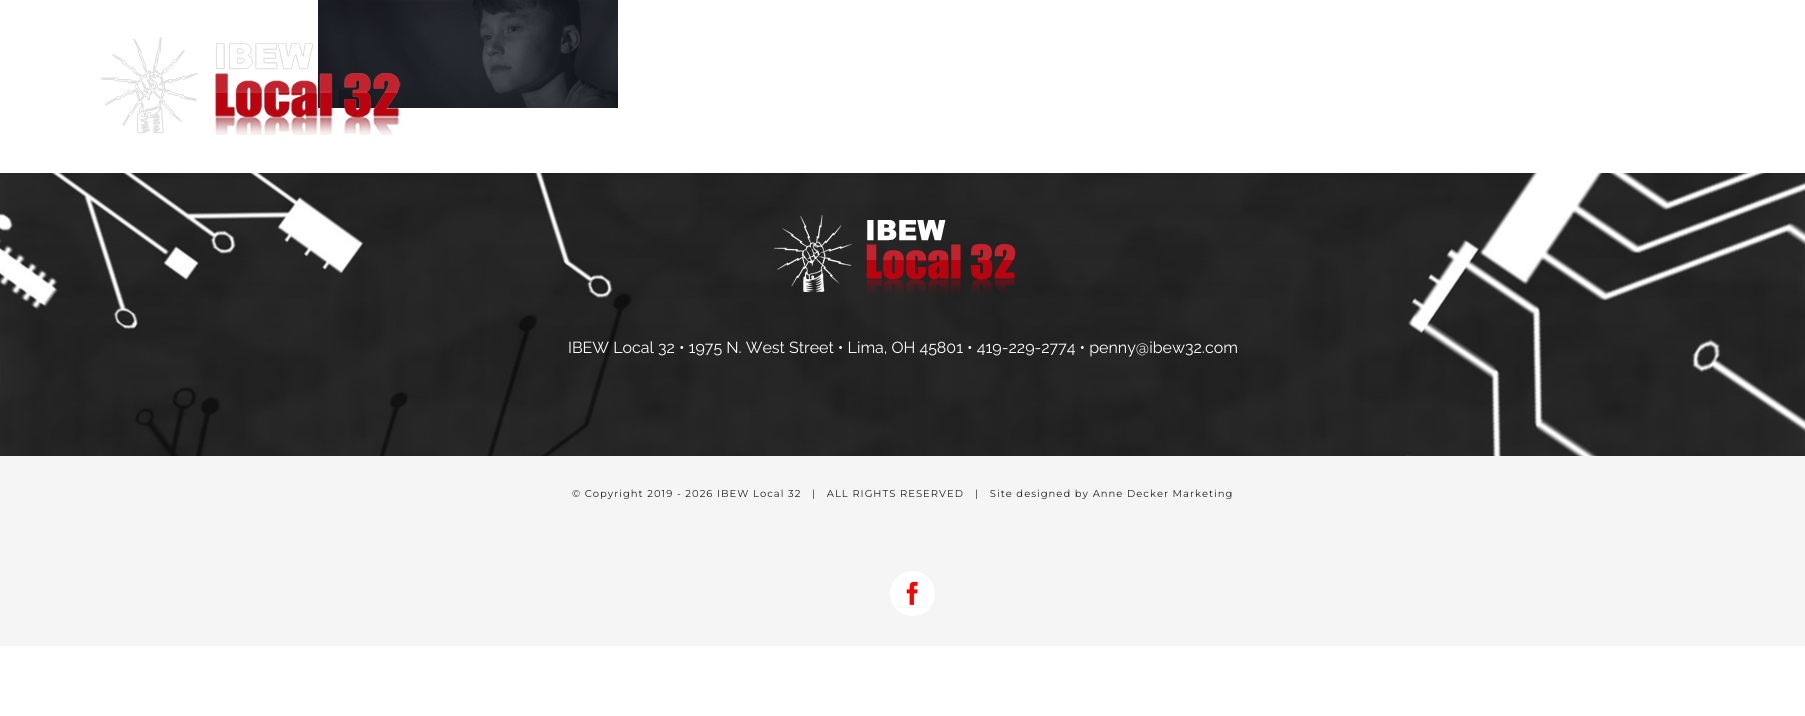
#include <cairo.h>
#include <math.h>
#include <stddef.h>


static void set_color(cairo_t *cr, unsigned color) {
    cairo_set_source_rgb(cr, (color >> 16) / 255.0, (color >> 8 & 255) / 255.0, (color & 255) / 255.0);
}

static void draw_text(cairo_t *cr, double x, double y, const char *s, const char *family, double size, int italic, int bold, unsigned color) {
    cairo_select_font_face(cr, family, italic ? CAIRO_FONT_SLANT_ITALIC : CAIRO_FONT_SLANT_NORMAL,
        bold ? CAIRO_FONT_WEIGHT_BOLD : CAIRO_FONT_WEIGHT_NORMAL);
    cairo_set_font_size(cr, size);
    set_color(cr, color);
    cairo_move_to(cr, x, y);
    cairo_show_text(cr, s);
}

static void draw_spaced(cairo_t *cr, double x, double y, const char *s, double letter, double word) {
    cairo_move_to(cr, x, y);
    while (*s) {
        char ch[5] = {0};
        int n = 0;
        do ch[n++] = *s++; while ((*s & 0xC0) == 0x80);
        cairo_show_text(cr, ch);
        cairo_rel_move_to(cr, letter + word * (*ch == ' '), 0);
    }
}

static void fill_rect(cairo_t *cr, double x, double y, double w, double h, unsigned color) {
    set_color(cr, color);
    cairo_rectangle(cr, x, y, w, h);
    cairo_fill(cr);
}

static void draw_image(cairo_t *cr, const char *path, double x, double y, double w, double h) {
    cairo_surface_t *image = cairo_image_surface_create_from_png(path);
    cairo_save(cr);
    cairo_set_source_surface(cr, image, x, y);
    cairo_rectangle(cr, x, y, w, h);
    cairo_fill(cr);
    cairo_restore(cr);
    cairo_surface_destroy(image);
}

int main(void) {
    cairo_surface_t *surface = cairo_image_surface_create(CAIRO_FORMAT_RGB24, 1805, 716);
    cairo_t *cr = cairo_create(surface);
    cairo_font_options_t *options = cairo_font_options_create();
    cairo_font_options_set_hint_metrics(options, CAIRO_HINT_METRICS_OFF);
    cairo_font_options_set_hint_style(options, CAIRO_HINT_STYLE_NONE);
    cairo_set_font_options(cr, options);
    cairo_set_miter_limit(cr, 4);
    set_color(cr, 0xFFFFFF);
    cairo_paint(cr);
    draw_image(cr, "assets/img2.png", 318, 0, 300, 108);
    draw_image(cr, "assets/img1.png", 101, 37, 300, 98);
    draw_image(cr, "assets/img3.png", 0, 173, 1805, 283);
    draw_image(cr, "assets/img4.png", 774, 215, 242, 79);
    draw_text(cr, 568, 353, "IBEW Local 32 • 1975 N. West Street • Lima, OH 45801 • 419-229-2774 • penny@ibew32.com", "Raleway", 16, 0, 0, 0xFFFFFF);
    fill_rect(cr, 0, 456, 1805, 190, 0xF5F5F5);
    cairo_select_font_face(cr, "Montserrat Thin", CAIRO_FONT_SLANT_NORMAL, CAIRO_FONT_WEIGHT_NORMAL);
    cairo_set_font_size(cr, 10);
    set_color(cr, 0x261F1F);
    draw_spaced(cr, 572, 497, "© Copyright 2019 - 2026 IBEW Local 32", 1, 0);
    draw_spaced(cr, 812, 497, "|   ALL RIGHTS RESERVED", 1, 0);
    draw_spaced(cr, 975, 497, "|   Site designed by Anne Decker Marketing", 1, 0);
    set_color(cr, 0xFFFFFF);
    cairo_new_path(cr);
    cairo_arc(cr, 912.5, 593.5, 22.5, 0, 2 * M_PI);
    cairo_fill(cr);
    draw_image(cr, "assets/img5.png", 906, 581, 12, 24);
    cairo_surface_write_to_png(surface, "output.png");
    cairo_font_options_destroy(options);
    cairo_destroy(cr);
    cairo_surface_destroy(surface);
    return 0;
}
